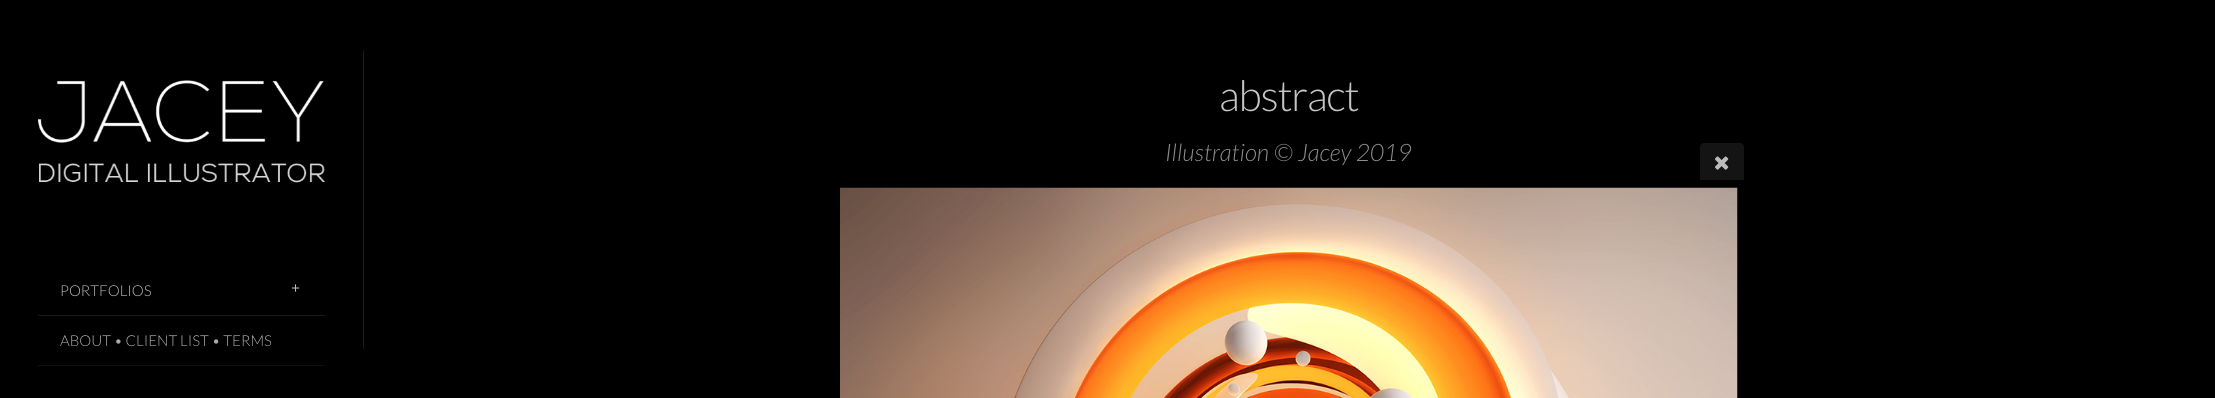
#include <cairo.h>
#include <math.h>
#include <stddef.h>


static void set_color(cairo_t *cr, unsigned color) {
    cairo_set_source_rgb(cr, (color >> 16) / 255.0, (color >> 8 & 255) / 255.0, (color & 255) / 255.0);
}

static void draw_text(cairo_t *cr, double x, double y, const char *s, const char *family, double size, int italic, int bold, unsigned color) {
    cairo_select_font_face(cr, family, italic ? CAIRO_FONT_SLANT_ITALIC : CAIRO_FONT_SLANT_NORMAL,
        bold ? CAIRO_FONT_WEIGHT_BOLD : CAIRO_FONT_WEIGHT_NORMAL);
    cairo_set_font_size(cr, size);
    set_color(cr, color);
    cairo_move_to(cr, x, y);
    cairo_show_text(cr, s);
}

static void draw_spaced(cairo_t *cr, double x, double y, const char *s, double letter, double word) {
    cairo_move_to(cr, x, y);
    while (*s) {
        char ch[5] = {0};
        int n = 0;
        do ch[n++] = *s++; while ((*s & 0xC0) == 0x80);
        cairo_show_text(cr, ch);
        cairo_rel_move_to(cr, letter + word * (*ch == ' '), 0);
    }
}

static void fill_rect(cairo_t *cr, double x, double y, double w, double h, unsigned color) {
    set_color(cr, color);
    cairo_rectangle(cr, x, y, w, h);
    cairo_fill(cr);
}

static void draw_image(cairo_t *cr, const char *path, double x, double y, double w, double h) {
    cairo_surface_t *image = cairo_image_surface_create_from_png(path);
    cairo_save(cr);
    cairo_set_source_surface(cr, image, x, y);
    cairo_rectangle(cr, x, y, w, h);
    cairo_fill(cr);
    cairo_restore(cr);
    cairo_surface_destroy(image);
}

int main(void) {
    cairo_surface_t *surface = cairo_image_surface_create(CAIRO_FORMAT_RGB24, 2215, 398);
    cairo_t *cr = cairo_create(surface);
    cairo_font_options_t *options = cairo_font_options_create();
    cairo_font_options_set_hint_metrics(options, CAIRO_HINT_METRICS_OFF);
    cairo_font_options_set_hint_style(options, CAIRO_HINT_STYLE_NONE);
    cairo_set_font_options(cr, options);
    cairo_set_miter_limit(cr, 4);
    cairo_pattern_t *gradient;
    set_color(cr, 0x000000);
    cairo_paint(cr);
    cairo_select_font_face(cr, "Lato Light", CAIRO_FONT_SLANT_NORMAL, CAIRO_FONT_WEIGHT_NORMAL);
    cairo_set_font_size(cr, 42.5);
    set_color(cr, 0xC5C5C5);
    draw_spaced(cr, 1219, 111, "abstract", -1.25, 0);
    draw_text(cr, 1165, 161, "Illustration © Jacey 2019", "Lato Light", 24, 1, 0, 0x8C8C8C);
    set_color(cr, 0x141414);
    cairo_new_path(cr);
    cairo_move_to(cr, 1704, 143);
    cairo_line_to(cr, 1740, 143);
    cairo_curve_to(cr, 1742, 143, 1744, 145, 1744, 147);
    cairo_line_to(cr, 1744, 181);
    cairo_line_to(cr, 1700, 181);
    cairo_line_to(cr, 1700, 147);
    cairo_curve_to(cr, 1700, 145, 1702, 143, 1704, 143);
    cairo_close_path(cr);
    cairo_fill(cr);
    draw_image(cr, "assets/img1.png", 1715, 156, 14, 14);
    fill_rect(cr, 1700, 180, 44, 1, 0x000000);
    draw_image(cr, "assets/img2.png", 840, 187, 898, 211);
    draw_image(cr, "assets/img3.png", 37, 80, 288, 103);
    fill_rect(cr, 38, 315, 287, 1, 0x1A1A1A);
    draw_text(cr, 60, 296, "PORTFOLIOS", "Lato Light", 15, 0, 0, 0xBBBBBB);
    draw_text(cr, 291, 293, "+", "Liberation Mono", 15, 0, 0, 0xBBBBBB);
    fill_rect(cr, 38, 365, 287, 1, 0x1A1A1A);
    draw_text(cr, 60, 346, "ABOUT • CLIENT LIST • TERMS", "Lato Light", 15, 0, 0, 0xBBBBBB);
    gradient = cairo_pattern_create_linear(181, 336, 181, 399);
    cairo_pattern_add_color_stop_rgba(gradient, 0, 0, 0, 0, 0);
    cairo_pattern_add_color_stop_rgba(gradient, 1, 0, 0, 0, 1);
    cairo_set_source(cr, gradient);
    cairo_pattern_destroy(gradient);
    cairo_rectangle(cr, 38, 337, 287, 29);
    cairo_fill(cr);
    fill_rect(cr, 363, 50, 1, 299, 0x1A1A1A);
    cairo_surface_write_to_png(surface, "output.png");
    cairo_font_options_destroy(options);
    cairo_destroy(cr);
    cairo_surface_destroy(surface);
    return 0;
}
